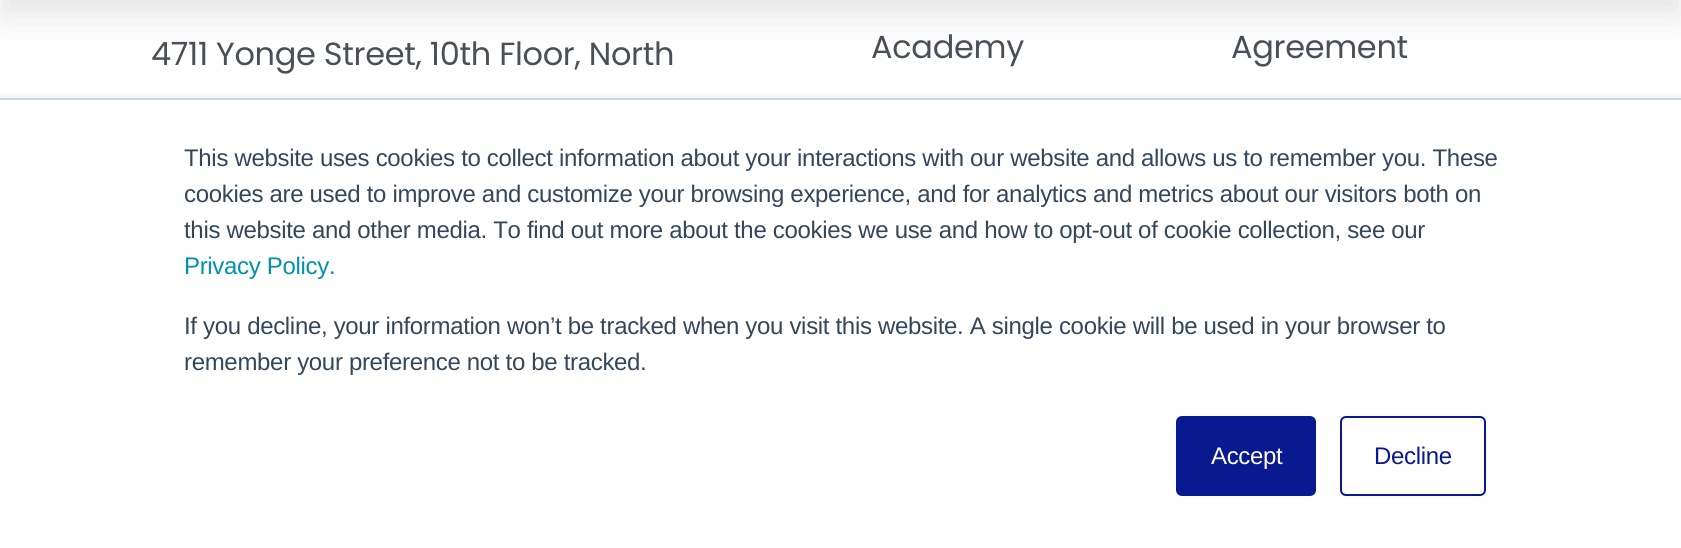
#include <cairo.h>
#include <math.h>
#include <stddef.h>


static void set_color(cairo_t *cr, unsigned color) {
    cairo_set_source_rgb(cr, (color >> 16) / 255.0, (color >> 8 & 255) / 255.0, (color & 255) / 255.0);
}

static void draw_spaced(cairo_t *cr, double x, double y, const char *s, double letter, double word) {
    cairo_move_to(cr, x, y);
    while (*s) {
        char ch[5] = {0};
        int n = 0;
        do ch[n++] = *s++; while ((*s & 0xC0) == 0x80);
        cairo_show_text(cr, ch);
        cairo_rel_move_to(cr, letter + word * (*ch == ' '), 0);
    }
}

static void fill_rect(cairo_t *cr, double x, double y, double w, double h, unsigned color) {
    set_color(cr, color);
    cairo_rectangle(cr, x, y, w, h);
    cairo_fill(cr);
}

static void rounded_rect(cairo_t *cr, double x, double y, double w, double h, double r) {
    cairo_new_sub_path(cr);
    cairo_arc(cr, x + w - r, y + h - r, r, 0, M_PI / 2);
    cairo_arc(cr, x + r, y + h - r, r, M_PI / 2, M_PI);
    cairo_arc(cr, x + r, y + r, r, M_PI, 1.5 * M_PI);
    cairo_arc(cr, x + w - r, y + r, r, 1.5 * M_PI, 2 * M_PI);
    cairo_close_path(cr);
}

static void draw_shadow(cairo_t *cr, double x, double y, double w, double h, double r, double blur, double alpha) {
    cairo_push_group_with_content(cr, CAIRO_CONTENT_ALPHA);
    cairo_set_operator(cr, CAIRO_OPERATOR_SOURCE);
    for (int i = 15; i >= -15 && fmin(w, h) + blur * i / 3 > 0; i -= 2) {
        double e = blur * i / 6;
        cairo_set_source_rgba(cr, 0, 0, 0, alpha * erfc((i - 1) / 8.5) / 2);
        rounded_rect(cr, x - e, y - e, w + 2 * e, h + 2 * e, fmax(0, fmin(r + e + blur * .6, fmin(w, h) / 2 + e)));
        cairo_fill(cr);
    }
    cairo_pattern_t *soft = cairo_pop_group(cr);
    cairo_mask(cr, soft);
    cairo_pattern_destroy(soft);
}

int main(void) {
    cairo_surface_t *surface = cairo_image_surface_create(CAIRO_FORMAT_RGB24, 1681, 548);
    cairo_t *cr = cairo_create(surface);
    cairo_font_options_t *options = cairo_font_options_create();
    cairo_font_options_set_hint_metrics(options, CAIRO_HINT_METRICS_OFF);
    cairo_font_options_set_hint_style(options, CAIRO_HINT_STYLE_NONE);
    cairo_set_font_options(cr, options);
    cairo_set_miter_limit(cr, 4);
    set_color(cr, 0xFFFFFF);
    cairo_paint(cr);
    set_color(cr, 0x000000);
    draw_shadow(cr, 0, -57, 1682, 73, 0, 19, 0.1);
    cairo_select_font_face(cr, "Poppins", CAIRO_FONT_SLANT_NORMAL, CAIRO_FONT_WEIGHT_NORMAL);
    cairo_set_font_size(cr, 32);
    set_color(cr, 0x495057);
    draw_spaced(cr, 151, 65, "4711 Yonge Street, 10th Floor, North", -0.32, 0);
    draw_spaced(cr, 871, 58, "Academy", -0.32, 0);
    draw_spaced(cr, 1231, 58, "Agreement", -0.32, 0);
    set_color(cr, 0xEAF0F6);
    draw_shadow(cr, 0, 96, 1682, 450, 0, 3, 1);
    fill_rect(cr, 0, 100, 1681, 448, 0xFFFFFF);
    fill_rect(cr, 0, 98, 1681, 2, 0xCBD6E2);
    cairo_select_font_face(cr, "Liberation Sans", CAIRO_FONT_SLANT_NORMAL, CAIRO_FONT_WEIGHT_NORMAL);
    cairo_set_font_size(cr, 24);
    set_color(cr, 0x33475B);
    draw_spaced(cr, 184, 166, "This website uses cookies to collect information about your interactions with our website and allows us to remember you. These", -0.32, 0);
    draw_spaced(cr, 184, 202, "cookies are used to improve and customize your browsing experience, and for analytics and metrics about our visitors both on", -0.32, 0);
    draw_spaced(cr, 184, 238, "this website and other media. To find out more about the cookies we use and how to opt-out of cookie collection, see our", -0.32, 0);
    set_color(cr, 0x0091AE);
    draw_spaced(cr, 184, 274, "Privacy Policy.", -0.32, 0);
    set_color(cr, 0x33475B);
    draw_spaced(cr, 184, 334, "If you decline, your information won’t be tracked when you visit this website. A single cookie will be used in your browser to", -0.32, 0);
    draw_spaced(cr, 184, 370, "remember your preference not to be tracked.", -0.32, 0);
    set_color(cr, 0x09198F);
    rounded_rect(cr, 1177, 417, 138, 78, 5);
    cairo_fill_preserve(cr);
    cairo_stroke(cr);
    set_color(cr, 0xFFFFFF);
    draw_spaced(cr, 1211, 464, "Accept", -0.32, 0);
    rounded_rect(cr, 1341, 417, 144, 78, 5);
    set_color(cr, 0x09198F);
    cairo_stroke(cr);
    draw_spaced(cr, 1374, 464, "Decline", -0.32, 0);
    cairo_surface_write_to_png(surface, "output.png");
    cairo_font_options_destroy(options);
    cairo_destroy(cr);
    cairo_surface_destroy(surface);
    return 0;
}
